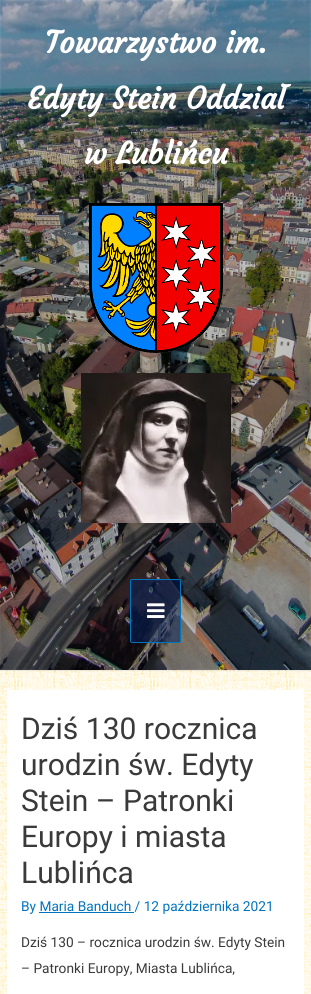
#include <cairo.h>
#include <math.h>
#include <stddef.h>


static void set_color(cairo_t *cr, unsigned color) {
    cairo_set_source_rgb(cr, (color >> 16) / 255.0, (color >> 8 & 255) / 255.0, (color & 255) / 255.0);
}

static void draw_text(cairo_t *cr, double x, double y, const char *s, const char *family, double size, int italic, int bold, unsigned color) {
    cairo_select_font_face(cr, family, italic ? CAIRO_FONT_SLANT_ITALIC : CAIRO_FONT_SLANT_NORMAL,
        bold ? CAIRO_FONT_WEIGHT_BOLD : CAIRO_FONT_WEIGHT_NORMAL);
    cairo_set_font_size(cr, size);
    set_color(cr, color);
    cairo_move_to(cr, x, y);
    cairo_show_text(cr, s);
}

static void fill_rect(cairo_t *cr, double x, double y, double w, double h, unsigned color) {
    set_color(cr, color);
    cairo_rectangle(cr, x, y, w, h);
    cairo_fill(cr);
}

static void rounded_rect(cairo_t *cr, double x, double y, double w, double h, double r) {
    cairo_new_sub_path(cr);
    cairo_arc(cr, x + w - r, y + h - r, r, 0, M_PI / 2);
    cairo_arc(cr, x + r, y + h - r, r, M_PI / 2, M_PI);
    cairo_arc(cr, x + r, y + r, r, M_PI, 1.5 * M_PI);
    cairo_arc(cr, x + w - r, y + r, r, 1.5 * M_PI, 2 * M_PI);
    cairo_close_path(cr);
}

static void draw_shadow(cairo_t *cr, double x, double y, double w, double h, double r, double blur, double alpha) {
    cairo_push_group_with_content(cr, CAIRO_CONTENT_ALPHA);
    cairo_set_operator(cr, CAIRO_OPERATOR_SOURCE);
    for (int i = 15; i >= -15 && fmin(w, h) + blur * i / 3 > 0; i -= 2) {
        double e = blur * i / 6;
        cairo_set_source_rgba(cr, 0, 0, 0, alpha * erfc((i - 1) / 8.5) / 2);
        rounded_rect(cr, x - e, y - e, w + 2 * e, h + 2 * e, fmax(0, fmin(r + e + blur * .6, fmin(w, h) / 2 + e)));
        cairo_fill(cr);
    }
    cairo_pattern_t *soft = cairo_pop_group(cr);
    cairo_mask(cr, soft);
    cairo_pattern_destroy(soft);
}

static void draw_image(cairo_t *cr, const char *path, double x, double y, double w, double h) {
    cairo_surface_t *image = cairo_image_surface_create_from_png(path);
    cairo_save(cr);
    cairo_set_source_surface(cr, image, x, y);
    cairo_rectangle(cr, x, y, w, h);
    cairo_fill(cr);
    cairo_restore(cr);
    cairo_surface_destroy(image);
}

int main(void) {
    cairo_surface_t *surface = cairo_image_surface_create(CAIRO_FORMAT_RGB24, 311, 994);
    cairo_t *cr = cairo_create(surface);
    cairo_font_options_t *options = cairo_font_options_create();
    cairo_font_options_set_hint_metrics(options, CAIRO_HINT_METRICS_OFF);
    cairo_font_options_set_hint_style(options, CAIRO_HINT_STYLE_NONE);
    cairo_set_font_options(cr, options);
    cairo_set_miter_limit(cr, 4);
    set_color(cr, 0xFFFFFF);
    cairo_paint(cr);
    draw_image(cr, "assets/img1.png", 0, 670, 311, 324);
    draw_image(cr, "assets/img2.png", 0, 0, 311, 670);
    set_color(cr, 0x000000);
    draw_shadow(cr, 0, 0, 311, 670, 0, 1, 0.21);
    draw_text(cr, 45, 53, "Towarzystwo im.", "Courgette", 30, 0, 1, 0xFFFFFF);
    draw_text(cr, 27, 109, "Edyty Stein Oddział", "Courgette", 30, 0, 1, 0xFFFFFF);
    draw_text(cr, 84, 164, "w Lublińcu", "Courgette", 30, 0, 1, 0xFFFFFF);
    draw_image(cr, "assets/img3.png", 89, 203, 134, 150);
    draw_image(cr, "assets/img4.png", 81, 373, 150, 150);
    cairo_set_source_rgba(cr, 0, 0.129, 0.369, 0.5);
    rounded_rect(cr, 130.5, 579.5, 50, 63, 1.5);
    cairo_fill_preserve(cr);
    set_color(cr, 0x0274BE);
    cairo_set_line_width(cr, 1);
    cairo_stroke(cr);
    draw_image(cr, "assets/img5.png", 147, 603, 18, 15);
    fill_rect(cr, 7, 690, 297, 304, 0xFFFFFF);
    draw_text(cr, 21, 739, "Dziś 130 rocznica", "Roboto", 30, 0, 0, 0x3A3A3A);
    draw_text(cr, 21, 775, "urodzin św. Edyty", "Roboto", 30, 0, 0, 0x3A3A3A);
    draw_text(cr, 21, 811, "Stein – Patronki", "Roboto", 30, 0, 0, 0x3A3A3A);
    draw_text(cr, 21, 847, "Europy i miasta", "Roboto", 30, 0, 0, 0x3A3A3A);
    draw_text(cr, 21, 883, "Lublińca", "Roboto", 30, 0, 0, 0x3A3A3A);
    draw_text(cr, 21, 911, "By Maria Banduch / 12 października 2021", "Roboto", 13.7, 0, 0, 0x0274BE);
    fill_rect(cr, 39, 912, 95, 1, 0x0274BE);
    draw_text(cr, 21, 947, "Dziś 130 – rocznica urodzin św. Edyty Stein", "Roboto", 13.7, 0, 0, 0x3A3A3A);
    draw_text(cr, 21, 973, "– Patronki Europy, Miasta Lublińca,", "Roboto", 13.7, 0, 0, 0x3A3A3A);
    cairo_surface_write_to_png(surface, "output.png");
    cairo_font_options_destroy(options);
    cairo_destroy(cr);
    cairo_surface_destroy(surface);
    return 0;
}
